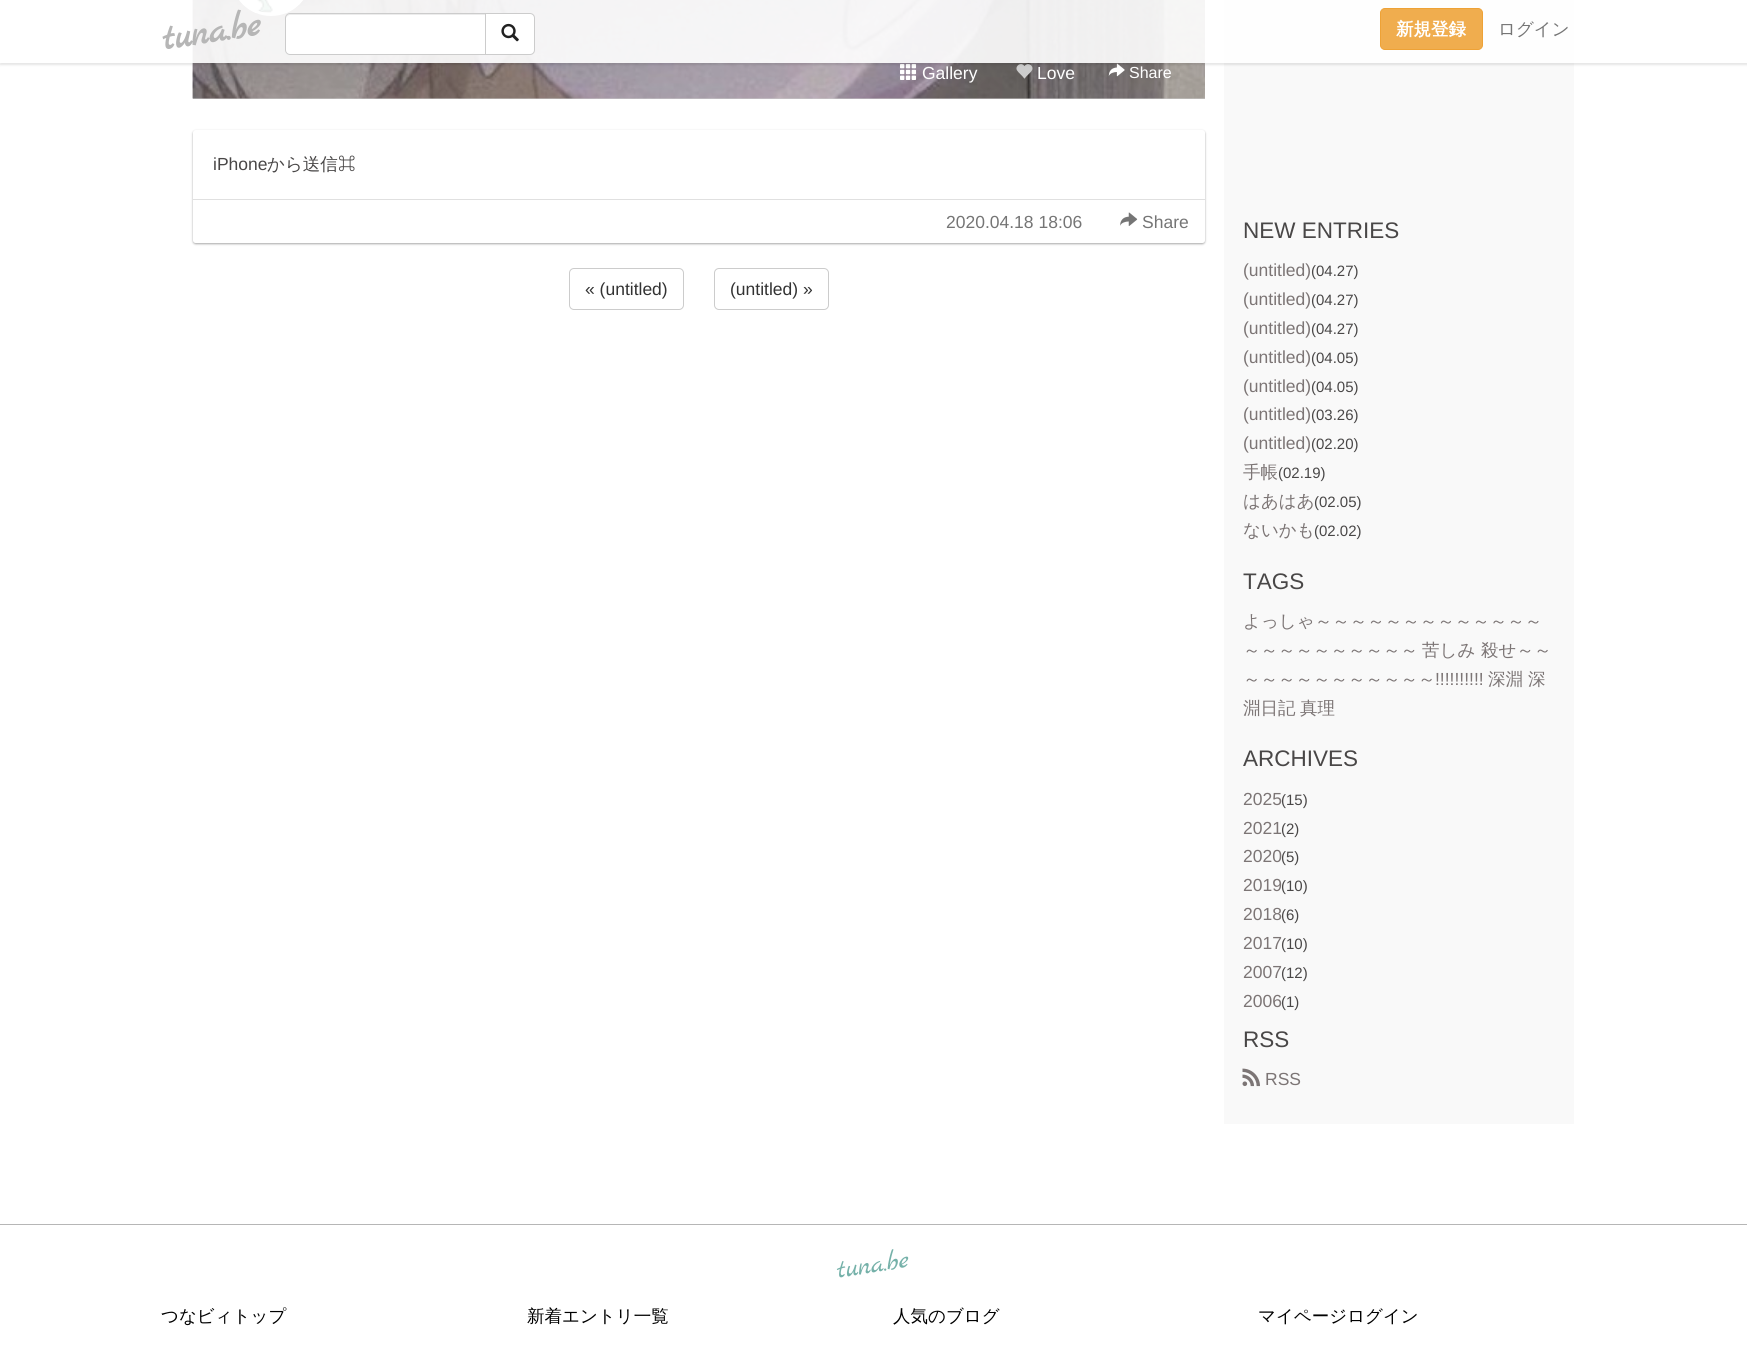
#include <cairo.h>
#include <math.h>
#include <stddef.h>


static void set_color(cairo_t *cr, unsigned color) {
    cairo_set_source_rgb(cr, (color >> 16) / 255.0, (color >> 8 & 255) / 255.0, (color & 255) / 255.0);
}

static void draw_text(cairo_t *cr, double x, double y, const char *s, const char *family, double size, int italic, int bold, unsigned color) {
    cairo_select_font_face(cr, family, italic ? CAIRO_FONT_SLANT_ITALIC : CAIRO_FONT_SLANT_NORMAL,
        bold ? CAIRO_FONT_WEIGHT_BOLD : CAIRO_FONT_WEIGHT_NORMAL);
    cairo_set_font_size(cr, size);
    set_color(cr, color);
    cairo_move_to(cr, x, y);
    cairo_show_text(cr, s);
}

static void fill_rect(cairo_t *cr, double x, double y, double w, double h, unsigned color) {
    set_color(cr, color);
    cairo_rectangle(cr, x, y, w, h);
    cairo_fill(cr);
}

static void rounded_rect(cairo_t *cr, double x, double y, double w, double h, double r) {
    cairo_new_sub_path(cr);
    cairo_arc(cr, x + w - r, y + h - r, r, 0, M_PI / 2);
    cairo_arc(cr, x + r, y + h - r, r, M_PI / 2, M_PI);
    cairo_arc(cr, x + r, y + r, r, M_PI, 1.5 * M_PI);
    cairo_arc(cr, x + w - r, y + r, r, 1.5 * M_PI, 2 * M_PI);
    cairo_close_path(cr);
}

static void draw_shadow(cairo_t *cr, double x, double y, double w, double h, double r, double blur, double alpha) {
    cairo_push_group_with_content(cr, CAIRO_CONTENT_ALPHA);
    cairo_set_operator(cr, CAIRO_OPERATOR_SOURCE);
    for (int i = 15; i >= -15 && fmin(w, h) + blur * i / 3 > 0; i -= 2) {
        double e = blur * i / 6;
        cairo_set_source_rgba(cr, 0, 0, 0, alpha * erfc((i - 1) / 8.5) / 2);
        rounded_rect(cr, x - e, y - e, w + 2 * e, h + 2 * e, fmax(0, fmin(r + e + blur * .6, fmin(w, h) / 2 + e)));
        cairo_fill(cr);
    }
    cairo_pattern_t *soft = cairo_pop_group(cr);
    cairo_mask(cr, soft);
    cairo_pattern_destroy(soft);
}

static void draw_image(cairo_t *cr, const char *path, double x, double y, double w, double h) {
    cairo_surface_t *image = cairo_image_surface_create_from_png(path);
    cairo_save(cr);
    cairo_set_source_surface(cr, image, x, y);
    cairo_rectangle(cr, x, y, w, h);
    cairo_fill(cr);
    cairo_restore(cr);
    cairo_surface_destroy(image);
}

int main(void) {
    cairo_surface_t *surface = cairo_image_surface_create(CAIRO_FORMAT_RGB24, 1747, 1362);
    cairo_t *cr = cairo_create(surface);
    cairo_font_options_t *options = cairo_font_options_create();
    cairo_font_options_set_hint_metrics(options, CAIRO_HINT_METRICS_OFF);
    cairo_font_options_set_hint_style(options, CAIRO_HINT_STYLE_NONE);
    cairo_set_font_options(cr, options);
    cairo_set_miter_limit(cr, 4);
    set_color(cr, 0xFFFFFF);
    cairo_paint(cr);
    fill_rect(cr, 193, 98, 1012, 1, 0xCCCCCC);
    draw_image(cr, "assets/img2.png", 192, 0, 1013, 99);
    draw_image(cr, "assets/img3.png", 239, 0, 64, 14);
    rounded_rect(cr, 232.5, -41.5, 77, 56, 38.5);
    set_color(cr, 0xFFFFFF);
    cairo_set_line_width(cr, 3);
    cairo_stroke(cr);
    draw_image(cr, "assets/img4.png", 900, 63, 17, 17);
    draw_image(cr, "assets/img5.png", 1016, 64, 17, 15);
    draw_image(cr, "assets/img6.png", 1108, 63, 17, 14);
    fill_rect(cr, 1224, 0, 350, 1124, 0xF9F9F9);
    cairo_save(cr);
    cairo_set_fill_rule(cr, CAIRO_FILL_RULE_EVEN_ODD);
    cairo_new_path(cr);
    cairo_move_to(cr, 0, 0);
    cairo_line_to(cr, 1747, 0);
    cairo_line_to(cr, 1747, 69);
    cairo_line_to(cr, 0, 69);
    cairo_close_path(cr);
    cairo_move_to(cr, 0, 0);
    cairo_line_to(cr, 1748, 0);
    cairo_line_to(cr, 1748, 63);
    cairo_line_to(cr, 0, 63);
    cairo_close_path(cr);
    cairo_clip(cr);
    set_color(cr, 0x000000);
    draw_shadow(cr, 0, 3, 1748, 62, 0, 1, 0.1);
    cairo_restore(cr);
    cairo_set_source_rgba(cr, 1, 1, 1, 0.9);
    cairo_rectangle(cr, 0, 0, 1747, 63);
    cairo_fill(cr);
    cairo_save(cr);
    cairo_translate(cr, 164, 50);
    cairo_rotate(cr, -9 * M_PI / 180);
    draw_text(cr, 0, 0, "tuna.be", "Marck Script", 37.5, 0, 1, 0xB6B6B6);
    cairo_restore(cr);
    set_color(cr, 0xFFFFFF);
    cairo_new_path(cr);
    cairo_move_to(cr, 290, 13);
    cairo_line_to(cr, 486, 13);
    cairo_line_to(cr, 486, 55);
    cairo_line_to(cr, 290, 55);
    cairo_curve_to(cr, 287, 55, 285, 53, 285, 50);
    cairo_line_to(cr, 285, 18);
    cairo_curve_to(cr, 285, 15, 287, 13, 290, 13);
    cairo_close_path(cr);
    cairo_fill(cr);
    set_color(cr, 0xECECEC);
    cairo_new_path(cr);
    cairo_move_to(cr, 290, 15);
    cairo_line_to(cr, 485, 15);
    cairo_line_to(cr, 485, 14);
    cairo_line_to(cr, 290, 14);
    cairo_curve_to(cr, 287, 14, 286, 16, 286, 19);
    cairo_curve_to(cr, 286, 17, 288, 15, 290, 15);
    cairo_close_path(cr);
    cairo_fill(cr);
    cairo_new_path(cr);
    cairo_move_to(cr, 290, 13.5);
    cairo_line_to(cr, 485.5, 13.5);
    cairo_line_to(cr, 485.5, 54.5);
    cairo_line_to(cr, 290, 54.5);
    cairo_curve_to(cr, 287.5, 54.5, 285.5, 52.5, 285.5, 50);
    cairo_line_to(cr, 285.5, 18);
    cairo_curve_to(cr, 285.5, 15.5, 287.5, 13.5, 290, 13.5);
    cairo_close_path(cr);
    set_color(cr, 0xCCCCCC);
    cairo_set_line_width(cr, 1);
    cairo_stroke(cr);
    set_color(cr, 0xFFFFFF);
    cairo_new_path(cr);
    cairo_move_to(cr, 485.5, 13.5);
    cairo_line_to(cr, 530, 13.5);
    cairo_curve_to(cr, 532.5, 13.5, 534.5, 15.5, 534.5, 18);
    cairo_line_to(cr, 534.5, 50);
    cairo_curve_to(cr, 534.5, 52.5, 532.5, 54.5, 530, 54.5);
    cairo_line_to(cr, 485.5, 54.5);
    cairo_close_path(cr);
    cairo_fill_preserve(cr);
    set_color(cr, 0xCCCCCC);
    cairo_stroke(cr);
    draw_image(cr, "assets/img1.png", 501, 23, 18, 19);
    set_color(cr, 0xF0AD4E);
    rounded_rect(cr, 1380.5, 8.5, 102, 41, 4.5);
    cairo_fill_preserve(cr);
    set_color(cr, 0xEEA236);
    cairo_stroke(cr);
    draw_text(cr, 1396, 35, "新規登録", "WenQuanYi Zen Hei", 17.5, 0, 1, 0xFFFFFF);
    draw_text(cr, 1498, 35, "ログイン", "WenQuanYi Zen Hei Medium", 17.5, 0, 0, 0x757575);
    draw_text(cr, 922, 79, "Gallery", "Liberation Sans", 17.5, 0, 0, 0xFFFFFF);
    draw_text(cr, 1037, 79, "Love", "Liberation Sans", 17.5, 0, 0, 0xFFFFFF);
    draw_text(cr, 1129, 78, "Share", "Liberation Sans", 16, 0, 0, 0xFFFFFF);
    set_color(cr, 0xAAAAAA);
    draw_shadow(cr, 193, 131, 1012, 113, 2.5, 1, 1);
    set_color(cr, 0xFFFFFF);
    rounded_rect(cr, 193, 130, 1012, 113, 2.5);
    cairo_fill(cr);
    draw_text(cr, 213, 170, "iPhone", "Liberation Sans", 17.5, 0, 0, 0x494747);
    draw_text(cr, 267, 170, "から送信", "WenQuanYi Zen Hei Medium", 17.5, 0, 0, 0x494747);
    draw_text(cr, 338, 170, "⌘", "IPAPGothic", 17.5, 0, 0, 0x494747);
    fill_rect(cr, 193, 199, 1012, 1, 0xE0E0E0);
    draw_text(cr, 946, 228, "2020.04.18 18:06", "Liberation Sans", 17.5, 0, 0, 0x757575);
    draw_image(cr, "assets/img7.png", 1120, 212, 18, 14);
    draw_text(cr, 1142, 228, "Share", "Liberation Sans", 17.5, 0, 0, 0x757575);
    rounded_rect(cr, 569.5, 268.5, 114, 41, 4.5);
    set_color(cr, 0xCCCCCC);
    cairo_stroke(cr);
    draw_text(cr, 585, 295, "« (untitled)", "Liberation Sans", 17.5, 0, 0, 0x333333);
    rounded_rect(cr, 714.5, 268.5, 114, 41, 4.5);
    set_color(cr, 0xCCCCCC);
    cairo_stroke(cr);
    draw_text(cr, 730, 295, "(untitled) »", "Liberation Sans", 17.5, 0, 0, 0x333333);
    draw_text(cr, 1243, 238, "NEW ENTRIES", "Liberation Sans", 22.5, 0, 0, 0x494747);
    draw_text(cr, 1243, 276, "(untitled)", "Liberation Sans", 17.5, 0, 0, 0x7C7575);
    draw_text(cr, 1311, 276, "(04.27)", "Liberation Sans", 15, 0, 0, 0x494747);
    draw_text(cr, 1243, 305, "(untitled)", "Liberation Sans", 17.5, 0, 0, 0x7C7575);
    draw_text(cr, 1311, 305, "(04.27)", "Liberation Sans", 15, 0, 0, 0x494747);
    draw_text(cr, 1243, 334, "(untitled)", "Liberation Sans", 17.5, 0, 0, 0x7C7575);
    draw_text(cr, 1311, 334, "(04.27)", "Liberation Sans", 15, 0, 0, 0x494747);
    draw_text(cr, 1243, 363, "(untitled)", "Liberation Sans", 17.5, 0, 0, 0x7C7575);
    draw_text(cr, 1311, 363, "(04.05)", "Liberation Sans", 15, 0, 0, 0x494747);
    draw_text(cr, 1243, 392, "(untitled)", "Liberation Sans", 17.5, 0, 0, 0x7C7575);
    draw_text(cr, 1311, 392, "(04.05)", "Liberation Sans", 15, 0, 0, 0x494747);
    draw_text(cr, 1243, 420, "(untitled)", "Liberation Sans", 17.5, 0, 0, 0x7C7575);
    draw_text(cr, 1311, 420, "(03.26)", "Liberation Sans", 15, 0, 0, 0x494747);
    draw_text(cr, 1243, 449, "(untitled)", "Liberation Sans", 17.5, 0, 0, 0x7C7575);
    draw_text(cr, 1311, 449, "(02.20)", "Liberation Sans", 15, 0, 0, 0x494747);
    draw_text(cr, 1243, 478, "手帳", "WenQuanYi Zen Hei Medium", 17.5, 0, 0, 0x7C7575);
    draw_text(cr, 1278, 478, "(02.19)", "Liberation Sans", 15, 0, 0, 0x494747);
    draw_text(cr, 1243, 507, "はあはあ", "WenQuanYi Zen Hei Medium", 17.5, 0, 0, 0x7C7575);
    draw_text(cr, 1314, 507, "(02.05)", "Liberation Sans", 15, 0, 0, 0x494747);
    draw_text(cr, 1243, 536, "ないかも", "WenQuanYi Zen Hei Medium", 17.5, 0, 0, 0x7C7575);
    draw_text(cr, 1314, 536, "(02.02)", "Liberation Sans", 15, 0, 0, 0x494747);
    draw_text(cr, 1243, 589, "TAGS", "Liberation Sans", 22.5, 0, 0, 0x494747);
    draw_text(cr, 1243, 627, "よっしゃ～～～～～～～～～～～～～", "WenQuanYi Zen Hei Medium", 17.5, 0, 0, 0x7C7575);
    draw_text(cr, 1243, 656, "～～～～～～～～～～", "WenQuanYi Zen Hei Medium", 17.5, 0, 0, 0x7C7575);
    draw_text(cr, 1422, 656, "苦しみ", "WenQuanYi Zen Hei Medium", 17.5, 0, 0, 0x7C7575);
    draw_text(cr, 1481, 656, "殺せ～～", "WenQuanYi Zen Hei Medium", 17.5, 0, 0, 0x7C7575);
    draw_text(cr, 1243, 685, "～～～～～～～～～～～", "WenQuanYi Zen Hei Medium", 17.5, 0, 0, 0x7C7575);
    draw_text(cr, 1435, 685, "!!!!!!!!!!", "Liberation Sans", 17.5, 0, 0, 0x7C7575);
    draw_text(cr, 1488, 685, "深淵", "WenQuanYi Zen Hei Medium", 17.5, 0, 0, 0x7C7575);
    draw_text(cr, 1528, 685, "深", "WenQuanYi Zen Hei Medium", 17.5, 0, 0, 0x7C7575);
    draw_text(cr, 1243, 714, "淵日記", "WenQuanYi Zen Hei Medium", 17.5, 0, 0, 0x7C7575);
    draw_text(cr, 1300, 714, "真理", "WenQuanYi Zen Hei Medium", 17.5, 0, 0, 0x7C7575);
    draw_text(cr, 1243, 766, "ARCHIVES", "Liberation Sans", 22.5, 0, 0, 0x494747);
    draw_text(cr, 1243, 805, "2025", "Liberation Sans", 17.5, 0, 0, 0x7C7575);
    draw_text(cr, 1281, 805, "(15)", "Liberation Sans", 15, 0, 0, 0x494747);
    draw_text(cr, 1243, 834, "2021", "Liberation Sans", 17.5, 0, 0, 0x7C7575);
    draw_text(cr, 1281, 834, "(2)", "Liberation Sans", 15, 0, 0, 0x494747);
    draw_text(cr, 1243, 862, "2020", "Liberation Sans", 17.5, 0, 0, 0x7C7575);
    draw_text(cr, 1281, 862, "(5)", "Liberation Sans", 15, 0, 0, 0x494747);
    draw_text(cr, 1243, 891, "2019", "Liberation Sans", 17.5, 0, 0, 0x7C7575);
    draw_text(cr, 1281, 891, "(10)", "Liberation Sans", 15, 0, 0, 0x494747);
    draw_text(cr, 1243, 920, "2018", "Liberation Sans", 17.5, 0, 0, 0x7C7575);
    draw_text(cr, 1281, 920, "(6)", "Liberation Sans", 15, 0, 0, 0x494747);
    draw_text(cr, 1243, 949, "2017", "Liberation Sans", 17.5, 0, 0, 0x7C7575);
    draw_text(cr, 1281, 949, "(10)", "Liberation Sans", 15, 0, 0, 0x494747);
    draw_text(cr, 1243, 978, "2007", "Liberation Sans", 17.5, 0, 0, 0x7C7575);
    draw_text(cr, 1281, 978, "(12)", "Liberation Sans", 15, 0, 0, 0x494747);
    draw_text(cr, 1243, 1007, "2006", "Liberation Sans", 17.5, 0, 0, 0x7C7575);
    draw_text(cr, 1281, 1007, "(1)", "Liberation Sans", 15, 0, 0, 0x494747);
    draw_text(cr, 1243, 1047, "RSS", "Liberation Sans", 22.5, 0, 0, 0x494747);
    draw_image(cr, "assets/img8.png", 1242, 1068, 18, 19);
    draw_text(cr, 1265, 1085, "RSS", "Liberation Sans", 17.5, 0, 0, 0x7C7575);
    fill_rect(cr, 0, 1224, 1747, 1, 0xB6B6B6);
    cairo_save(cr);
    cairo_translate(cr, 838, 1278);
    cairo_rotate(cr, -9 * M_PI / 180);
    draw_text(cr, 0, 0, "tuna.be", "Marck Script", 27.5, 0, 0, 0x75B1A9);
    cairo_restore(cr);
    draw_text(cr, 161, 1322, "つなビィトップ", "WenQuanYi Zen Hei Medium", 17.5, 0, 0, 0x000000);
    draw_text(cr, 527, 1322, "新着エントリ一覧", "WenQuanYi Zen Hei Medium", 17.5, 0, 0, 0x000000);
    draw_text(cr, 893, 1322, "人気のブログ", "WenQuanYi Zen Hei Medium", 17.5, 0, 0, 0x000000);
    draw_text(cr, 1258, 1322, "マイページログイン", "WenQuanYi Zen Hei Medium", 17.5, 0, 0, 0x000000);
    cairo_surface_write_to_png(surface, "output.png");
    cairo_font_options_destroy(options);
    cairo_destroy(cr);
    cairo_surface_destroy(surface);
    return 0;
}
